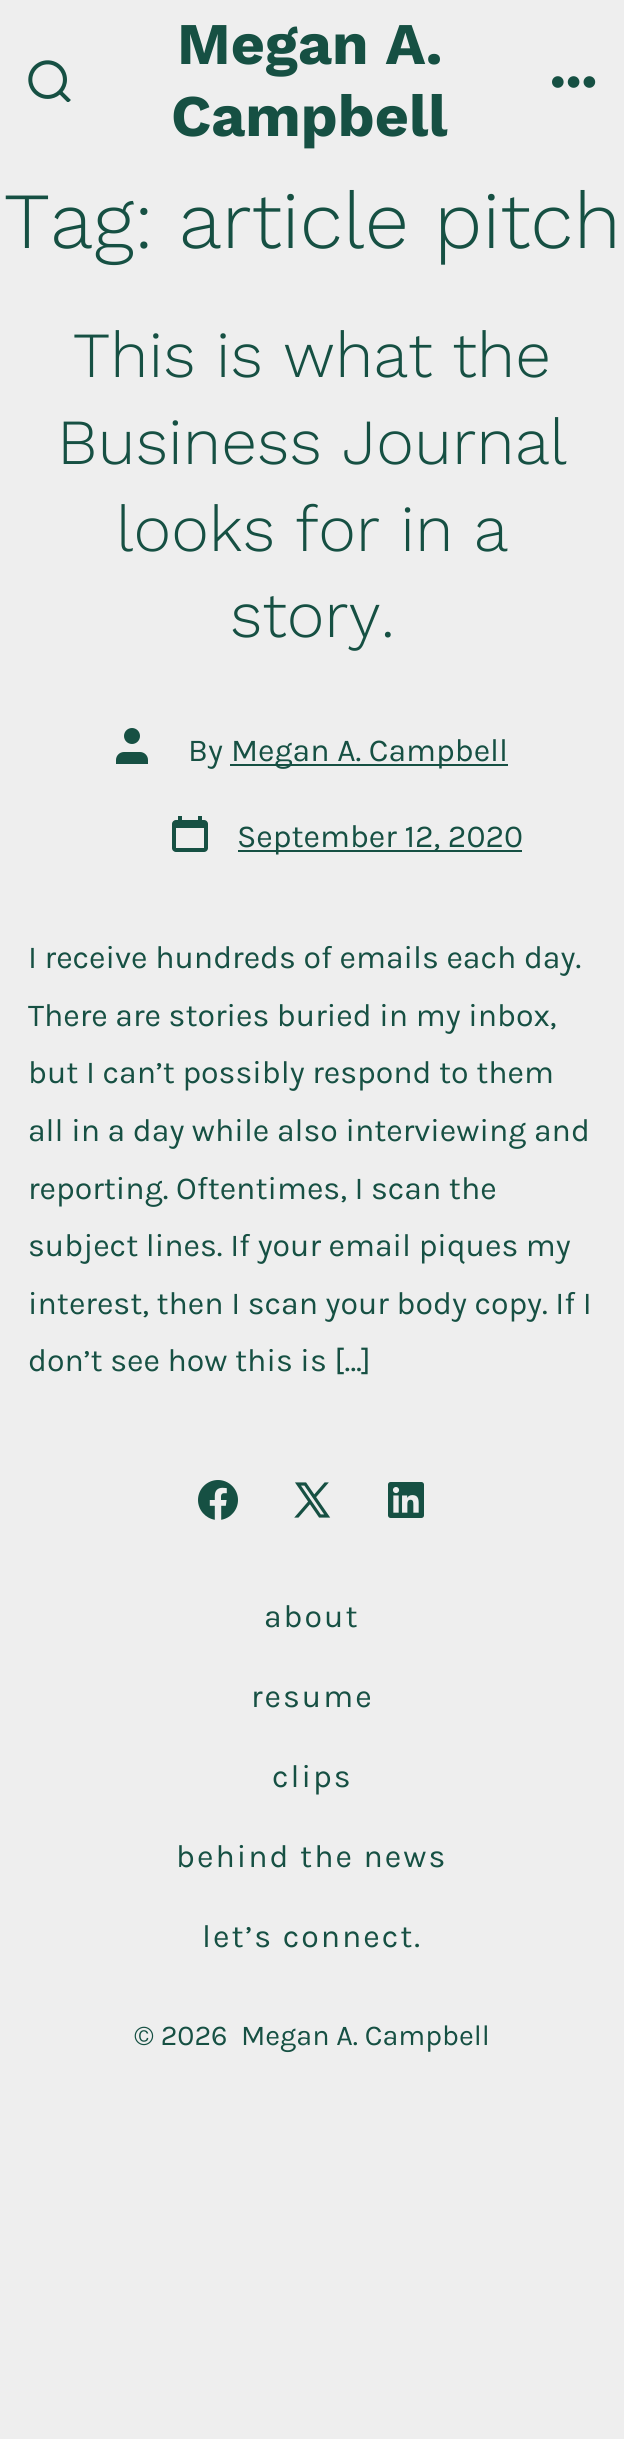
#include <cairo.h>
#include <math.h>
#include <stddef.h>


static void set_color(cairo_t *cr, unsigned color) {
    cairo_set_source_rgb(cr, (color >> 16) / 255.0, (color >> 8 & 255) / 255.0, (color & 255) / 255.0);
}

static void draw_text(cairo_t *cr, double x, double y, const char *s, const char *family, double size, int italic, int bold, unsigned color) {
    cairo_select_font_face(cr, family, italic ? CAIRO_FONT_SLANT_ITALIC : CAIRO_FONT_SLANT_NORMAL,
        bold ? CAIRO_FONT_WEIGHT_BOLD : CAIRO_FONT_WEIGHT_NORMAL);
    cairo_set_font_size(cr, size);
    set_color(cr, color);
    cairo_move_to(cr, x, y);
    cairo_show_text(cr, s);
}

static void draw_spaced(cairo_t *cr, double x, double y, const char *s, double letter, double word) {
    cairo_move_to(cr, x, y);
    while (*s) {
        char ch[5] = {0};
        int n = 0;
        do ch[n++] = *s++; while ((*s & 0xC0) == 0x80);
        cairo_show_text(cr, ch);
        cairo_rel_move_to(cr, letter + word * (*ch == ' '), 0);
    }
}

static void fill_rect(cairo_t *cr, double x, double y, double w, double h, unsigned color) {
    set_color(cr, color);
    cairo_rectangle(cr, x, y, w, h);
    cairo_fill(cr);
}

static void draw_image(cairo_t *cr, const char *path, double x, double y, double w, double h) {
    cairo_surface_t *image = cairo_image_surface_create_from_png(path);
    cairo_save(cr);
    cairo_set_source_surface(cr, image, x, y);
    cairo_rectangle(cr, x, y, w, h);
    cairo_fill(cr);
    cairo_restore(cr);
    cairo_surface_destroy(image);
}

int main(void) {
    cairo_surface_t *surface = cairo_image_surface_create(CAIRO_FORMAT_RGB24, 624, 2439);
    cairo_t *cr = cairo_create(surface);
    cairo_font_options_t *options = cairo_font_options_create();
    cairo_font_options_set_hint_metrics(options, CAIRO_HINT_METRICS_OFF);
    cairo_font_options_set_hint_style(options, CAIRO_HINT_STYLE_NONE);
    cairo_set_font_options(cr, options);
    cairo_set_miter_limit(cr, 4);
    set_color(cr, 0xEEEEEE);
    cairo_paint(cr);
    draw_image(cr, "assets/img1.png", 28, 60, 43, 42);
    draw_text(cr, 177, 64, "Megan A.", "Work Sans", 59, 0, 1, 0x165043);
    draw_text(cr, 171, 136, "Campbell", "Work Sans", 59, 0, 1, 0x165043);
    draw_image(cr, "assets/img2.png", 552, 76, 44, 12);
    draw_text(cr, 4, 248, "Tag: article pitch", "Work Sans Light", 79.5, 0, 0, 0x165043);
    draw_text(cr, 73, 377, "This is what the", "Work Sans Light", 64.25, 0, 0, 0x165043);
    draw_text(cr, 57, 464, "Business Journal", "Work Sans Light", 64.25, 0, 0, 0x165043);
    draw_text(cr, 116, 551, "looks for in a", "Work Sans Light", 64.25, 0, 0, 0x165043);
    draw_text(cr, 230, 637, "story.", "Work Sans Light", 64.25, 0, 0, 0x165043);
    draw_image(cr, "assets/img3.png", 116, 728, 32, 36);
    draw_text(cr, 188, 761, "By", "Karla", 32, 0, 0, 0x165043);
    fill_rect(cr, 230, 764, 278, 2, 0x165043);
    draw_text(cr, 231, 761, "Megan A. Campbell", "Karla", 32, 0, 0, 0x165043);
    draw_image(cr, "assets/img4.png", 172, 816, 36, 36);
    fill_rect(cr, 238, 850, 284, 2, 0x165043);
    draw_text(cr, 237, 847, "September 12, 2020", "Karla", 32, 0, 0, 0x165043);
    draw_text(cr, 28, 968, "I receive hundreds of emails each day.", "Karla", 32, 0, 0, 0x165043);
    draw_text(cr, 28, 1026, "There are stories buried in my inbox,", "Karla", 32, 0, 0, 0x165043);
    draw_text(cr, 28, 1083, "but I can’t possibly respond to them", "Karla", 32, 0, 0, 0x165043);
    draw_text(cr, 28, 1141, "all in a day while also interviewing and", "Karla", 32, 0, 0, 0x165043);
    draw_text(cr, 28, 1199, "reporting. Oftentimes, I scan the", "Karla", 32, 0, 0, 0x165043);
    draw_text(cr, 28, 1256, "subject lines. If your email piques my", "Karla", 32, 0, 0, 0x165043);
    draw_text(cr, 28, 1314, "interest, then I scan your body copy. If I", "Karla", 32, 0, 0, 0x165043);
    draw_text(cr, 28, 1371, "don’t see how this is […]", "Karla", 32, 0, 0, 0x165043);
    draw_image(cr, "assets/img5.png", 198, 1480, 40, 40);
    draw_image(cr, "assets/img6.png", 294, 1482, 37, 36);
    draw_image(cr, "assets/img7.png", 388, 1482, 36, 36);
    draw_spaced(cr, 264, 1627, "about", 2, 0);
    draw_spaced(cr, 251, 1707, "resume", 2, 0);
    draw_spaced(cr, 272, 1787, "clips", 2, 0);
    draw_spaced(cr, 176, 1867, "behind the news", 2, 0);
    draw_spaced(cr, 202, 1947, "let’s connect.", 2, 0);
    draw_text(cr, 134, 2045, "© 2026", "Karla", 28.75, 0, 0, 0x165043);
    draw_text(cr, 241, 2045, "Megan A. Campbell", "Karla", 28.75, 0, 0, 0x165043);
    cairo_surface_write_to_png(surface, "output.png");
    cairo_font_options_destroy(options);
    cairo_destroy(cr);
    cairo_surface_destroy(surface);
    return 0;
}
